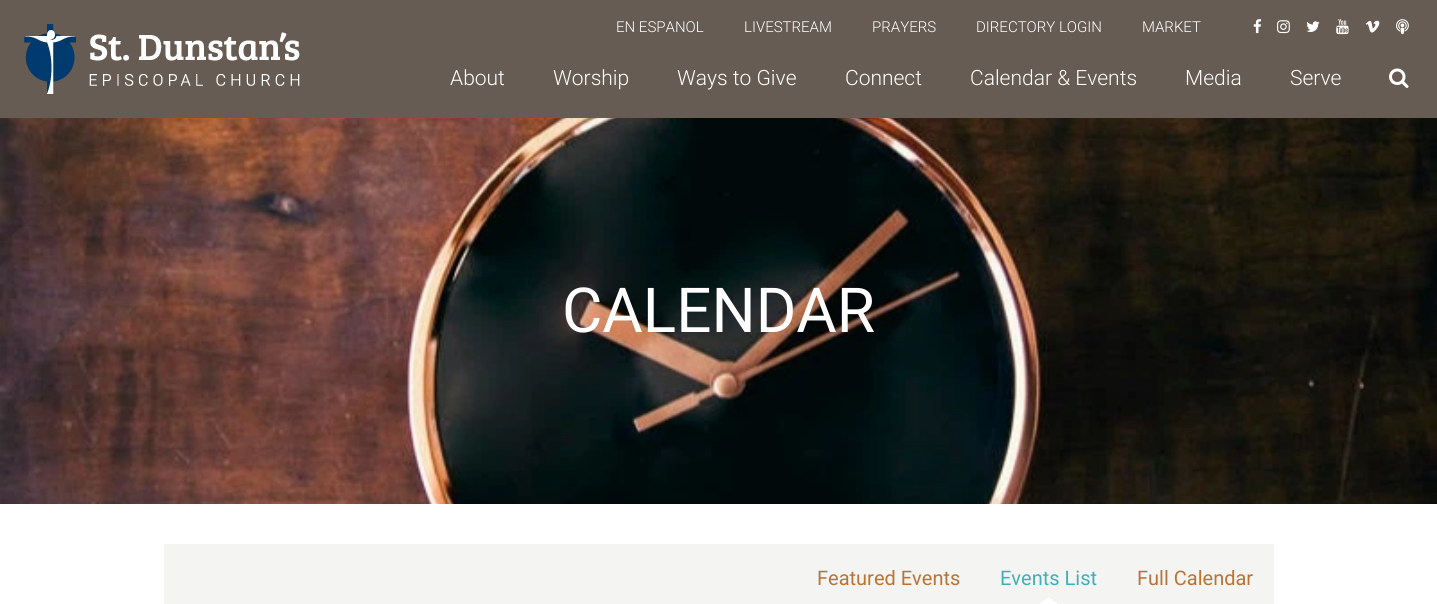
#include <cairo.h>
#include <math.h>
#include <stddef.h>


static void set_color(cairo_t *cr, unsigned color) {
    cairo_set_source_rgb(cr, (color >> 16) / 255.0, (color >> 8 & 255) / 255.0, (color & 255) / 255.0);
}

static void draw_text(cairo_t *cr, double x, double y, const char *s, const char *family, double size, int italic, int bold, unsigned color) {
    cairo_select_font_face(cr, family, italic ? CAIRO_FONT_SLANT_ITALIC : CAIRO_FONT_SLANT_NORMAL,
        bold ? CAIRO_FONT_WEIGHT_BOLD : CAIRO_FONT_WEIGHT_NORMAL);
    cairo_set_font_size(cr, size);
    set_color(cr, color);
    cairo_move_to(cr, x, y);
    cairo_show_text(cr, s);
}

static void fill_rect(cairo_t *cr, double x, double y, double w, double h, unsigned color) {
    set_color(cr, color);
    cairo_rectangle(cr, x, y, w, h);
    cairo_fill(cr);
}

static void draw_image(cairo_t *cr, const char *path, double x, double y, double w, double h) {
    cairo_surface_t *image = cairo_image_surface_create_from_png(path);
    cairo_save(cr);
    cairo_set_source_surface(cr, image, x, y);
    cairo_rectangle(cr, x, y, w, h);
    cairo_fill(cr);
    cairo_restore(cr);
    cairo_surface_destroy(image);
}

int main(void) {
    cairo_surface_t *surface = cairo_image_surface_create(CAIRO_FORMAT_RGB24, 1437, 604);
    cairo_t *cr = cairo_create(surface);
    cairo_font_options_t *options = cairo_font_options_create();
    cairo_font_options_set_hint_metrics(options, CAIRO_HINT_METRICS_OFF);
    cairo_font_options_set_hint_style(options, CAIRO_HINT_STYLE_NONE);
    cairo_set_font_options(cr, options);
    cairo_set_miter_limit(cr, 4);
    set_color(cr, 0xFFFFFF);
    cairo_paint(cr);
    fill_rect(cr, 0, 0, 1437, 118, 0x675C53);
    draw_image(cr, "assets/img1.png", 24, 24, 276, 70);
    draw_text(cr, 616, 32, "EN ESPANOL", "Roboto Light", 15, 0, 0, 0xFFFFFF);
    draw_text(cr, 744, 32, "LIVESTREAM", "Roboto Light", 15, 0, 0, 0xFFFFFF);
    draw_text(cr, 872, 32, "PRAYERS", "Roboto Light", 15, 0, 0, 0xFFFFFF);
    draw_text(cr, 976, 32, "DIRECTORY LOGIN", "Roboto Light", 15, 0, 0, 0xFFFFFF);
    draw_text(cr, 1142, 32, "MARKET", "Roboto Light", 15, 0, 0, 0xFFFFFF);
    draw_image(cr, "assets/img2.png", 1253, 19, 9, 15);
    draw_image(cr, "assets/img3.png", 1277, 20, 13, 14);
    draw_image(cr, "assets/img4.png", 1306, 21, 14, 11);
    draw_image(cr, "assets/img5.png", 1336, 19, 13, 16);
    draw_image(cr, "assets/img6.png", 1365, 20, 15, 13);
    draw_image(cr, "assets/img7.png", 1396, 19, 13, 16);
    draw_text(cr, 450, 85, "About", "Roboto Light", 21, 0, 0, 0xFFFFFF);
    draw_text(cr, 553, 85, "Worship", "Roboto Light", 21, 0, 0, 0xFFFFFF);
    draw_text(cr, 677, 85, "Ways to Give", "Roboto Light", 21, 0, 0, 0xFFFFFF);
    draw_text(cr, 845, 85, "Connect", "Roboto Light", 21, 0, 0, 0xFFFFFF);
    draw_text(cr, 970, 85, "Calendar & Events", "Roboto Light", 21, 0, 0, 0xFFFFFF);
    draw_text(cr, 1185, 85, "Media", "Roboto Light", 21, 0, 0, 0xFFFFFF);
    draw_text(cr, 1290, 85, "Serve", "Roboto Light", 21, 0, 0, 0xFFFFFF);
    draw_image(cr, "assets/img8.png", 1389, 68, 20, 20);
    draw_image(cr, "assets/img9.png", 0, 118, 1437, 386);
    draw_text(cr, 562, 332, "CALENDAR", "Roboto", 62, 0, 0, 0xFFFFFF);
    fill_rect(cr, 164, 544, 1110, 60, 0xF4F4F2);
    draw_text(cr, 817, 585, "Featured Events", "Roboto", 20, 0, 0, 0xB97434);
    draw_image(cr, "assets/img10.png", 1040, 597, 17, 7);
    draw_text(cr, 1000, 585, "Events List", "Roboto", 20, 0, 0, 0x3FAFBA);
    draw_text(cr, 1137, 585, "Full Calendar", "Roboto", 20, 0, 0, 0xB97434);
    cairo_surface_write_to_png(surface, "output.png");
    cairo_font_options_destroy(options);
    cairo_destroy(cr);
    cairo_surface_destroy(surface);
    return 0;
}
